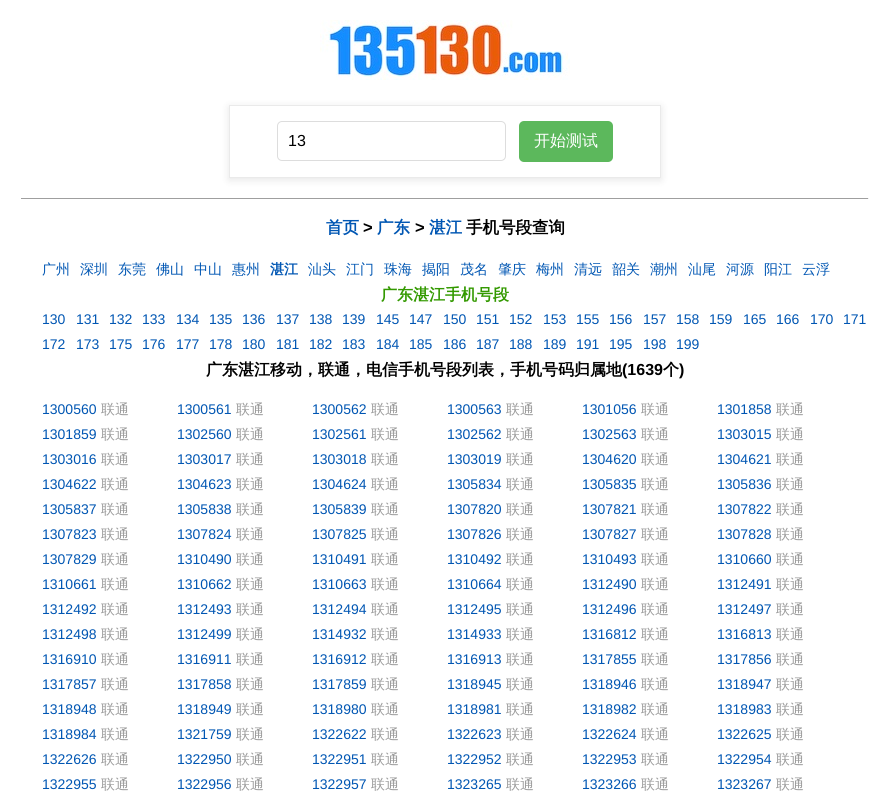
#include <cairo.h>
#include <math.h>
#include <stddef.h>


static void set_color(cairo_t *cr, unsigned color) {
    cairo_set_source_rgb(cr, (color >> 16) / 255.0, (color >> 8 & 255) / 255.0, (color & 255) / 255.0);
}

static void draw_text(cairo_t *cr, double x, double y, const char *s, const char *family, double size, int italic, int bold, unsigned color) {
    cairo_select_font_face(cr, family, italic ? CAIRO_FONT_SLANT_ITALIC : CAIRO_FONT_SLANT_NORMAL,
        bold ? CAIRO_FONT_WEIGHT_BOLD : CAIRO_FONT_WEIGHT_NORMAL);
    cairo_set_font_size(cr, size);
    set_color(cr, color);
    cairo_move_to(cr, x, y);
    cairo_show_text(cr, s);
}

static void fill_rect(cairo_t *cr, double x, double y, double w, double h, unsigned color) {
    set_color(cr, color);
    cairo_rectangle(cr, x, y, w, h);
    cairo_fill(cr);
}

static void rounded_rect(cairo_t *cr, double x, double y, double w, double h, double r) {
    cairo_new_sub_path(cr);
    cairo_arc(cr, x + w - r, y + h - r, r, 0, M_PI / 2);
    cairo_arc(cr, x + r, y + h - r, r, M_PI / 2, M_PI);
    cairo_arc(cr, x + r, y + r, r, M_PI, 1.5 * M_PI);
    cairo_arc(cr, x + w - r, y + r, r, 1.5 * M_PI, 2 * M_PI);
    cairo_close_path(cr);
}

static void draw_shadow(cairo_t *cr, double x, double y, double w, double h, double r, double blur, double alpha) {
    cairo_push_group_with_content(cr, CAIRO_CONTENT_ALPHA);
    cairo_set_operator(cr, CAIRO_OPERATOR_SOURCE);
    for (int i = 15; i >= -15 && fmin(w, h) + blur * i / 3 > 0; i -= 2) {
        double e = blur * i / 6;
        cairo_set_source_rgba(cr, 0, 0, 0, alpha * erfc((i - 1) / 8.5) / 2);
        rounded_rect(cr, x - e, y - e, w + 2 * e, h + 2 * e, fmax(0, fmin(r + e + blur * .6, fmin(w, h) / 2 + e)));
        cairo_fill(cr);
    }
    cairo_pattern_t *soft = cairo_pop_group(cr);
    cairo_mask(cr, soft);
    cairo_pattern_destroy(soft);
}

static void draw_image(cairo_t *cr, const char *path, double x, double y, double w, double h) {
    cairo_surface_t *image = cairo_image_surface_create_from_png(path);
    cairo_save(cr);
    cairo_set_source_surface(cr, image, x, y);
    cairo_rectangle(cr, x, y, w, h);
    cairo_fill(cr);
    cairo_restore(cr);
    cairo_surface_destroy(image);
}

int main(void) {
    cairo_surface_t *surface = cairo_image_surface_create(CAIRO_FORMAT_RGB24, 890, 803);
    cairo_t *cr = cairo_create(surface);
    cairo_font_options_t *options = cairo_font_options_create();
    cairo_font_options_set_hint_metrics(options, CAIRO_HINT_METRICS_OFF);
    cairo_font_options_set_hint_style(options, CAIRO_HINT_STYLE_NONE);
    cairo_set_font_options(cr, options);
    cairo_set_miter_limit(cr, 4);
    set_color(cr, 0xFFFFFF);
    cairo_paint(cr);
    draw_image(cr, "assets/img1.png", 320, 20, 250, 60);
    cairo_save(cr);
    cairo_set_fill_rule(cr, CAIRO_FILL_RULE_EVEN_ODD);
    cairo_new_path(cr);
    cairo_move_to(cr, 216, 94);
    cairo_line_to(cr, 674, 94);
    cairo_line_to(cr, 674, 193);
    cairo_line_to(cr, 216, 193);
    cairo_close_path(cr);
    cairo_move_to(cr, 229, 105);
    cairo_line_to(cr, 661, 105);
    cairo_line_to(cr, 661, 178);
    cairo_line_to(cr, 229, 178);
    cairo_close_path(cr);
    cairo_clip(cr);
    set_color(cr, 0x000000);
    draw_shadow(cr, 229, 107, 432, 73, 0, 4, 0.1);
    cairo_restore(cr);
    cairo_rectangle(cr, 229.5, 105.5, 431, 72);
    set_color(cr, 0xEAEAEA);
    cairo_set_line_width(cr, 1);
    cairo_stroke(cr);
    rounded_rect(cr, 277.5, 121.5, 228, 39, 4.5);
    set_color(cr, 0xDDDDDD);
    cairo_stroke(cr);
    draw_text(cr, 288, 146, "13", "Liberation Sans", 16, 0, 0, 0x000000);
    set_color(cr, 0x5CB85C);
    rounded_rect(cr, 519, 121, 94, 41, 5);
    cairo_fill(cr);
    draw_text(cr, 534, 146, "开始测试", "WenQuanYi Zen Hei Medium", 16, 0, 0, 0xFFFFFF);
    fill_rect(cr, 21, 198, 848, 1, 0x9F9F9F);
    fill_rect(cr, 868, 198, 1, 1, 0xEEEEEE);
    draw_text(cr, 326, 233, "首页", "WenQuanYi Zen Hei", 16.5, 0, 1, 0x0056B3);
    draw_text(cr, 363, 233, ">", "Liberation Sans", 16.5, 0, 1, 0x000000);
    draw_text(cr, 377, 233, "广东", "WenQuanYi Zen Hei", 16.5, 0, 1, 0x0056B3);
    draw_text(cr, 415, 233, ">", "Liberation Sans", 16.5, 0, 1, 0x000000);
    draw_text(cr, 429, 233, "湛江", "WenQuanYi Zen Hei", 16.5, 0, 1, 0x0056B3);
    draw_text(cr, 466, 233, "手机号段查询", "WenQuanYi Zen Hei", 16.5, 0, 1, 0x000000);
    draw_text(cr, 42, 274, "广州", "WenQuanYi Zen Hei Medium", 14, 0, 0, 0x0056B3);
    draw_text(cr, 80, 274, "深圳", "WenQuanYi Zen Hei Medium", 14, 0, 0, 0x0056B3);
    draw_text(cr, 118, 274, "东莞", "WenQuanYi Zen Hei Medium", 14, 0, 0, 0x0056B3);
    draw_text(cr, 156, 274, "佛山", "WenQuanYi Zen Hei Medium", 14, 0, 0, 0x0056B3);
    draw_text(cr, 194, 274, "中山", "WenQuanYi Zen Hei Medium", 14, 0, 0, 0x0056B3);
    draw_text(cr, 232, 274, "惠州", "WenQuanYi Zen Hei Medium", 14, 0, 0, 0x0056B3);
    draw_text(cr, 270, 274, "湛江", "WenQuanYi Zen Hei", 14, 0, 1, 0x0056B3);
    draw_text(cr, 308, 274, "汕头", "WenQuanYi Zen Hei Medium", 14, 0, 0, 0x0056B3);
    draw_text(cr, 346, 274, "江门", "WenQuanYi Zen Hei Medium", 14, 0, 0, 0x0056B3);
    draw_text(cr, 384, 274, "珠海", "WenQuanYi Zen Hei Medium", 14, 0, 0, 0x0056B3);
    draw_text(cr, 422, 274, "揭阳", "WenQuanYi Zen Hei Medium", 14, 0, 0, 0x0056B3);
    draw_text(cr, 460, 274, "茂名", "WenQuanYi Zen Hei Medium", 14, 0, 0, 0x0056B3);
    draw_text(cr, 498, 274, "肇庆", "WenQuanYi Zen Hei Medium", 14, 0, 0, 0x0056B3);
    draw_text(cr, 536, 274, "梅州", "WenQuanYi Zen Hei Medium", 14, 0, 0, 0x0056B3);
    draw_text(cr, 574, 274, "清远", "WenQuanYi Zen Hei Medium", 14, 0, 0, 0x0056B3);
    draw_text(cr, 612, 274, "韶关", "WenQuanYi Zen Hei Medium", 14, 0, 0, 0x0056B3);
    draw_text(cr, 650, 274, "潮州", "WenQuanYi Zen Hei Medium", 14, 0, 0, 0x0056B3);
    draw_text(cr, 688, 274, "汕尾", "WenQuanYi Zen Hei Medium", 14, 0, 0, 0x0056B3);
    draw_text(cr, 726, 274, "河源", "WenQuanYi Zen Hei Medium", 14, 0, 0, 0x0056B3);
    draw_text(cr, 764, 274, "阳江", "WenQuanYi Zen Hei Medium", 14, 0, 0, 0x0056B3);
    draw_text(cr, 802, 274, "云浮", "WenQuanYi Zen Hei Medium", 14, 0, 0, 0x0056B3);
    draw_text(cr, 381, 300, "广东湛江手机号段", "WenQuanYi Zen Hei", 16, 0, 1, 0x339900);
    draw_text(cr, 42, 324, "130", "Liberation Sans", 14, 0, 0, 0x0056B3);
    draw_text(cr, 76, 324, "131", "Liberation Sans", 14, 0, 0, 0x0056B3);
    draw_text(cr, 109, 324, "132", "Liberation Sans", 14, 0, 0, 0x0056B3);
    draw_text(cr, 142, 324, "133", "Liberation Sans", 14, 0, 0, 0x0056B3);
    draw_text(cr, 176, 324, "134", "Liberation Sans", 14, 0, 0, 0x0056B3);
    draw_text(cr, 209, 324, "135", "Liberation Sans", 14, 0, 0, 0x0056B3);
    draw_text(cr, 242, 324, "136", "Liberation Sans", 14, 0, 0, 0x0056B3);
    draw_text(cr, 276, 324, "137", "Liberation Sans", 14, 0, 0, 0x0056B3);
    draw_text(cr, 309, 324, "138", "Liberation Sans", 14, 0, 0, 0x0056B3);
    draw_text(cr, 342, 324, "139", "Liberation Sans", 14, 0, 0, 0x0056B3);
    draw_text(cr, 376, 324, "145", "Liberation Sans", 14, 0, 0, 0x0056B3);
    draw_text(cr, 409, 324, "147", "Liberation Sans", 14, 0, 0, 0x0056B3);
    draw_text(cr, 443, 324, "150", "Liberation Sans", 14, 0, 0, 0x0056B3);
    draw_text(cr, 476, 324, "151", "Liberation Sans", 14, 0, 0, 0x0056B3);
    draw_text(cr, 509, 324, "152", "Liberation Sans", 14, 0, 0, 0x0056B3);
    draw_text(cr, 543, 324, "153", "Liberation Sans", 14, 0, 0, 0x0056B3);
    draw_text(cr, 576, 324, "155", "Liberation Sans", 14, 0, 0, 0x0056B3);
    draw_text(cr, 609, 324, "156", "Liberation Sans", 14, 0, 0, 0x0056B3);
    draw_text(cr, 643, 324, "157", "Liberation Sans", 14, 0, 0, 0x0056B3);
    draw_text(cr, 676, 324, "158", "Liberation Sans", 14, 0, 0, 0x0056B3);
    draw_text(cr, 709, 324, "159", "Liberation Sans", 14, 0, 0, 0x0056B3);
    draw_text(cr, 743, 324, "165", "Liberation Sans", 14, 0, 0, 0x0056B3);
    draw_text(cr, 776, 324, "166", "Liberation Sans", 14, 0, 0, 0x0056B3);
    draw_text(cr, 810, 324, "170", "Liberation Sans", 14, 0, 0, 0x0056B3);
    draw_text(cr, 843, 324, "171", "Liberation Sans", 14, 0, 0, 0x0056B3);
    draw_text(cr, 42, 349, "172", "Liberation Sans", 14, 0, 0, 0x0056B3);
    draw_text(cr, 76, 349, "173", "Liberation Sans", 14, 0, 0, 0x0056B3);
    draw_text(cr, 109, 349, "175", "Liberation Sans", 14, 0, 0, 0x0056B3);
    draw_text(cr, 142, 349, "176", "Liberation Sans", 14, 0, 0, 0x0056B3);
    draw_text(cr, 176, 349, "177", "Liberation Sans", 14, 0, 0, 0x0056B3);
    draw_text(cr, 209, 349, "178", "Liberation Sans", 14, 0, 0, 0x0056B3);
    draw_text(cr, 242, 349, "180", "Liberation Sans", 14, 0, 0, 0x0056B3);
    draw_text(cr, 276, 349, "181", "Liberation Sans", 14, 0, 0, 0x0056B3);
    draw_text(cr, 309, 349, "182", "Liberation Sans", 14, 0, 0, 0x0056B3);
    draw_text(cr, 342, 349, "183", "Liberation Sans", 14, 0, 0, 0x0056B3);
    draw_text(cr, 376, 349, "184", "Liberation Sans", 14, 0, 0, 0x0056B3);
    draw_text(cr, 409, 349, "185", "Liberation Sans", 14, 0, 0, 0x0056B3);
    draw_text(cr, 443, 349, "186", "Liberation Sans", 14, 0, 0, 0x0056B3);
    draw_text(cr, 476, 349, "187", "Liberation Sans", 14, 0, 0, 0x0056B3);
    draw_text(cr, 509, 349, "188", "Liberation Sans", 14, 0, 0, 0x0056B3);
    draw_text(cr, 543, 349, "189", "Liberation Sans", 14, 0, 0, 0x0056B3);
    draw_text(cr, 576, 349, "191", "Liberation Sans", 14, 0, 0, 0x0056B3);
    draw_text(cr, 609, 349, "195", "Liberation Sans", 14, 0, 0, 0x0056B3);
    draw_text(cr, 643, 349, "198", "Liberation Sans", 14, 0, 0, 0x0056B3);
    draw_text(cr, 676, 349, "199", "Liberation Sans", 14, 0, 0, 0x0056B3);
    draw_text(cr, 206, 375, "广东湛江移动，联通，电信手机号段列表，手机号码归属地", "WenQuanYi Zen Hei", 16, 0, 1, 0x000000);
    draw_text(cr, 622, 375, "(1639", "Liberation Sans", 16, 0, 1, 0x000000);
    draw_text(cr, 663, 375, "个", "WenQuanYi Zen Hei", 16, 0, 1, 0x000000);
    draw_text(cr, 679, 375, ")", "Liberation Sans", 16, 0, 1, 0x000000);
    draw_text(cr, 42, 414, "1300560", "Liberation Sans", 14, 0, 0, 0x0056B3);
    draw_text(cr, 101, 414, "联通", "WenQuanYi Zen Hei Medium", 14, 0, 0, 0x999999);
    draw_text(cr, 177, 414, "1300561", "Liberation Sans", 14, 0, 0, 0x0056B3);
    draw_text(cr, 236, 414, "联通", "WenQuanYi Zen Hei Medium", 14, 0, 0, 0x999999);
    draw_text(cr, 312, 414, "1300562", "Liberation Sans", 14, 0, 0, 0x0056B3);
    draw_text(cr, 371, 414, "联通", "WenQuanYi Zen Hei Medium", 14, 0, 0, 0x999999);
    draw_text(cr, 447, 414, "1300563", "Liberation Sans", 14, 0, 0, 0x0056B3);
    draw_text(cr, 506, 414, "联通", "WenQuanYi Zen Hei Medium", 14, 0, 0, 0x999999);
    draw_text(cr, 582, 414, "1301056", "Liberation Sans", 14, 0, 0, 0x0056B3);
    draw_text(cr, 641, 414, "联通", "WenQuanYi Zen Hei Medium", 14, 0, 0, 0x999999);
    draw_text(cr, 717, 414, "1301858", "Liberation Sans", 14, 0, 0, 0x0056B3);
    draw_text(cr, 776, 414, "联通", "WenQuanYi Zen Hei Medium", 14, 0, 0, 0x999999);
    draw_text(cr, 42, 439, "1301859", "Liberation Sans", 14, 0, 0, 0x0056B3);
    draw_text(cr, 101, 439, "联通", "WenQuanYi Zen Hei Medium", 14, 0, 0, 0x999999);
    draw_text(cr, 177, 439, "1302560", "Liberation Sans", 14, 0, 0, 0x0056B3);
    draw_text(cr, 236, 439, "联通", "WenQuanYi Zen Hei Medium", 14, 0, 0, 0x999999);
    draw_text(cr, 312, 439, "1302561", "Liberation Sans", 14, 0, 0, 0x0056B3);
    draw_text(cr, 371, 439, "联通", "WenQuanYi Zen Hei Medium", 14, 0, 0, 0x999999);
    draw_text(cr, 447, 439, "1302562", "Liberation Sans", 14, 0, 0, 0x0056B3);
    draw_text(cr, 506, 439, "联通", "WenQuanYi Zen Hei Medium", 14, 0, 0, 0x999999);
    draw_text(cr, 582, 439, "1302563", "Liberation Sans", 14, 0, 0, 0x0056B3);
    draw_text(cr, 641, 439, "联通", "WenQuanYi Zen Hei Medium", 14, 0, 0, 0x999999);
    draw_text(cr, 717, 439, "1303015", "Liberation Sans", 14, 0, 0, 0x0056B3);
    draw_text(cr, 776, 439, "联通", "WenQuanYi Zen Hei Medium", 14, 0, 0, 0x999999);
    draw_text(cr, 42, 464, "1303016", "Liberation Sans", 14, 0, 0, 0x0056B3);
    draw_text(cr, 101, 464, "联通", "WenQuanYi Zen Hei Medium", 14, 0, 0, 0x999999);
    draw_text(cr, 177, 464, "1303017", "Liberation Sans", 14, 0, 0, 0x0056B3);
    draw_text(cr, 236, 464, "联通", "WenQuanYi Zen Hei Medium", 14, 0, 0, 0x999999);
    draw_text(cr, 312, 464, "1303018", "Liberation Sans", 14, 0, 0, 0x0056B3);
    draw_text(cr, 371, 464, "联通", "WenQuanYi Zen Hei Medium", 14, 0, 0, 0x999999);
    draw_text(cr, 447, 464, "1303019", "Liberation Sans", 14, 0, 0, 0x0056B3);
    draw_text(cr, 506, 464, "联通", "WenQuanYi Zen Hei Medium", 14, 0, 0, 0x999999);
    draw_text(cr, 582, 464, "1304620", "Liberation Sans", 14, 0, 0, 0x0056B3);
    draw_text(cr, 641, 464, "联通", "WenQuanYi Zen Hei Medium", 14, 0, 0, 0x999999);
    draw_text(cr, 717, 464, "1304621", "Liberation Sans", 14, 0, 0, 0x0056B3);
    draw_text(cr, 776, 464, "联通", "WenQuanYi Zen Hei Medium", 14, 0, 0, 0x999999);
    draw_text(cr, 42, 489, "1304622", "Liberation Sans", 14, 0, 0, 0x0056B3);
    draw_text(cr, 101, 489, "联通", "WenQuanYi Zen Hei Medium", 14, 0, 0, 0x999999);
    draw_text(cr, 177, 489, "1304623", "Liberation Sans", 14, 0, 0, 0x0056B3);
    draw_text(cr, 236, 489, "联通", "WenQuanYi Zen Hei Medium", 14, 0, 0, 0x999999);
    draw_text(cr, 312, 489, "1304624", "Liberation Sans", 14, 0, 0, 0x0056B3);
    draw_text(cr, 371, 489, "联通", "WenQuanYi Zen Hei Medium", 14, 0, 0, 0x999999);
    draw_text(cr, 447, 489, "1305834", "Liberation Sans", 14, 0, 0, 0x0056B3);
    draw_text(cr, 506, 489, "联通", "WenQuanYi Zen Hei Medium", 14, 0, 0, 0x999999);
    draw_text(cr, 582, 489, "1305835", "Liberation Sans", 14, 0, 0, 0x0056B3);
    draw_text(cr, 641, 489, "联通", "WenQuanYi Zen Hei Medium", 14, 0, 0, 0x999999);
    draw_text(cr, 717, 489, "1305836", "Liberation Sans", 14, 0, 0, 0x0056B3);
    draw_text(cr, 776, 489, "联通", "WenQuanYi Zen Hei Medium", 14, 0, 0, 0x999999);
    draw_text(cr, 42, 514, "1305837", "Liberation Sans", 14, 0, 0, 0x0056B3);
    draw_text(cr, 101, 514, "联通", "WenQuanYi Zen Hei Medium", 14, 0, 0, 0x999999);
    draw_text(cr, 177, 514, "1305838", "Liberation Sans", 14, 0, 0, 0x0056B3);
    draw_text(cr, 236, 514, "联通", "WenQuanYi Zen Hei Medium", 14, 0, 0, 0x999999);
    draw_text(cr, 312, 514, "1305839", "Liberation Sans", 14, 0, 0, 0x0056B3);
    draw_text(cr, 371, 514, "联通", "WenQuanYi Zen Hei Medium", 14, 0, 0, 0x999999);
    draw_text(cr, 447, 514, "1307820", "Liberation Sans", 14, 0, 0, 0x0056B3);
    draw_text(cr, 506, 514, "联通", "WenQuanYi Zen Hei Medium", 14, 0, 0, 0x999999);
    draw_text(cr, 582, 514, "1307821", "Liberation Sans", 14, 0, 0, 0x0056B3);
    draw_text(cr, 641, 514, "联通", "WenQuanYi Zen Hei Medium", 14, 0, 0, 0x999999);
    draw_text(cr, 717, 514, "1307822", "Liberation Sans", 14, 0, 0, 0x0056B3);
    draw_text(cr, 776, 514, "联通", "WenQuanYi Zen Hei Medium", 14, 0, 0, 0x999999);
    draw_text(cr, 42, 539, "1307823", "Liberation Sans", 14, 0, 0, 0x0056B3);
    draw_text(cr, 101, 539, "联通", "WenQuanYi Zen Hei Medium", 14, 0, 0, 0x999999);
    draw_text(cr, 177, 539, "1307824", "Liberation Sans", 14, 0, 0, 0x0056B3);
    draw_text(cr, 236, 539, "联通", "WenQuanYi Zen Hei Medium", 14, 0, 0, 0x999999);
    draw_text(cr, 312, 539, "1307825", "Liberation Sans", 14, 0, 0, 0x0056B3);
    draw_text(cr, 371, 539, "联通", "WenQuanYi Zen Hei Medium", 14, 0, 0, 0x999999);
    draw_text(cr, 447, 539, "1307826", "Liberation Sans", 14, 0, 0, 0x0056B3);
    draw_text(cr, 506, 539, "联通", "WenQuanYi Zen Hei Medium", 14, 0, 0, 0x999999);
    draw_text(cr, 582, 539, "1307827", "Liberation Sans", 14, 0, 0, 0x0056B3);
    draw_text(cr, 641, 539, "联通", "WenQuanYi Zen Hei Medium", 14, 0, 0, 0x999999);
    draw_text(cr, 717, 539, "1307828", "Liberation Sans", 14, 0, 0, 0x0056B3);
    draw_text(cr, 776, 539, "联通", "WenQuanYi Zen Hei Medium", 14, 0, 0, 0x999999);
    draw_text(cr, 42, 564, "1307829", "Liberation Sans", 14, 0, 0, 0x0056B3);
    draw_text(cr, 101, 564, "联通", "WenQuanYi Zen Hei Medium", 14, 0, 0, 0x999999);
    draw_text(cr, 177, 564, "1310490", "Liberation Sans", 14, 0, 0, 0x0056B3);
    draw_text(cr, 236, 564, "联通", "WenQuanYi Zen Hei Medium", 14, 0, 0, 0x999999);
    draw_text(cr, 312, 564, "1310491", "Liberation Sans", 14, 0, 0, 0x0056B3);
    draw_text(cr, 371, 564, "联通", "WenQuanYi Zen Hei Medium", 14, 0, 0, 0x999999);
    draw_text(cr, 447, 564, "1310492", "Liberation Sans", 14, 0, 0, 0x0056B3);
    draw_text(cr, 506, 564, "联通", "WenQuanYi Zen Hei Medium", 14, 0, 0, 0x999999);
    draw_text(cr, 582, 564, "1310493", "Liberation Sans", 14, 0, 0, 0x0056B3);
    draw_text(cr, 641, 564, "联通", "WenQuanYi Zen Hei Medium", 14, 0, 0, 0x999999);
    draw_text(cr, 717, 564, "1310660", "Liberation Sans", 14, 0, 0, 0x0056B3);
    draw_text(cr, 776, 564, "联通", "WenQuanYi Zen Hei Medium", 14, 0, 0, 0x999999);
    draw_text(cr, 42, 589, "1310661", "Liberation Sans", 14, 0, 0, 0x0056B3);
    draw_text(cr, 101, 589, "联通", "WenQuanYi Zen Hei Medium", 14, 0, 0, 0x999999);
    draw_text(cr, 177, 589, "1310662", "Liberation Sans", 14, 0, 0, 0x0056B3);
    draw_text(cr, 236, 589, "联通", "WenQuanYi Zen Hei Medium", 14, 0, 0, 0x999999);
    draw_text(cr, 312, 589, "1310663", "Liberation Sans", 14, 0, 0, 0x0056B3);
    draw_text(cr, 371, 589, "联通", "WenQuanYi Zen Hei Medium", 14, 0, 0, 0x999999);
    draw_text(cr, 447, 589, "1310664", "Liberation Sans", 14, 0, 0, 0x0056B3);
    draw_text(cr, 506, 589, "联通", "WenQuanYi Zen Hei Medium", 14, 0, 0, 0x999999);
    draw_text(cr, 582, 589, "1312490", "Liberation Sans", 14, 0, 0, 0x0056B3);
    draw_text(cr, 641, 589, "联通", "WenQuanYi Zen Hei Medium", 14, 0, 0, 0x999999);
    draw_text(cr, 717, 589, "1312491", "Liberation Sans", 14, 0, 0, 0x0056B3);
    draw_text(cr, 776, 589, "联通", "WenQuanYi Zen Hei Medium", 14, 0, 0, 0x999999);
    draw_text(cr, 42, 614, "1312492", "Liberation Sans", 14, 0, 0, 0x0056B3);
    draw_text(cr, 101, 614, "联通", "WenQuanYi Zen Hei Medium", 14, 0, 0, 0x999999);
    draw_text(cr, 177, 614, "1312493", "Liberation Sans", 14, 0, 0, 0x0056B3);
    draw_text(cr, 236, 614, "联通", "WenQuanYi Zen Hei Medium", 14, 0, 0, 0x999999);
    draw_text(cr, 312, 614, "1312494", "Liberation Sans", 14, 0, 0, 0x0056B3);
    draw_text(cr, 371, 614, "联通", "WenQuanYi Zen Hei Medium", 14, 0, 0, 0x999999);
    draw_text(cr, 447, 614, "1312495", "Liberation Sans", 14, 0, 0, 0x0056B3);
    draw_text(cr, 506, 614, "联通", "WenQuanYi Zen Hei Medium", 14, 0, 0, 0x999999);
    draw_text(cr, 582, 614, "1312496", "Liberation Sans", 14, 0, 0, 0x0056B3);
    draw_text(cr, 641, 614, "联通", "WenQuanYi Zen Hei Medium", 14, 0, 0, 0x999999);
    draw_text(cr, 717, 614, "1312497", "Liberation Sans", 14, 0, 0, 0x0056B3);
    draw_text(cr, 776, 614, "联通", "WenQuanYi Zen Hei Medium", 14, 0, 0, 0x999999);
    draw_text(cr, 42, 639, "1312498", "Liberation Sans", 14, 0, 0, 0x0056B3);
    draw_text(cr, 101, 639, "联通", "WenQuanYi Zen Hei Medium", 14, 0, 0, 0x999999);
    draw_text(cr, 177, 639, "1312499", "Liberation Sans", 14, 0, 0, 0x0056B3);
    draw_text(cr, 236, 639, "联通", "WenQuanYi Zen Hei Medium", 14, 0, 0, 0x999999);
    draw_text(cr, 312, 639, "1314932", "Liberation Sans", 14, 0, 0, 0x0056B3);
    draw_text(cr, 371, 639, "联通", "WenQuanYi Zen Hei Medium", 14, 0, 0, 0x999999);
    draw_text(cr, 447, 639, "1314933", "Liberation Sans", 14, 0, 0, 0x0056B3);
    draw_text(cr, 506, 639, "联通", "WenQuanYi Zen Hei Medium", 14, 0, 0, 0x999999);
    draw_text(cr, 582, 639, "1316812", "Liberation Sans", 14, 0, 0, 0x0056B3);
    draw_text(cr, 641, 639, "联通", "WenQuanYi Zen Hei Medium", 14, 0, 0, 0x999999);
    draw_text(cr, 717, 639, "1316813", "Liberation Sans", 14, 0, 0, 0x0056B3);
    draw_text(cr, 776, 639, "联通", "WenQuanYi Zen Hei Medium", 14, 0, 0, 0x999999);
    draw_text(cr, 42, 664, "1316910", "Liberation Sans", 14, 0, 0, 0x0056B3);
    draw_text(cr, 101, 664, "联通", "WenQuanYi Zen Hei Medium", 14, 0, 0, 0x999999);
    draw_text(cr, 177, 664, "1316911", "Liberation Sans", 14, 0, 0, 0x0056B3);
    draw_text(cr, 236, 664, "联通", "WenQuanYi Zen Hei Medium", 14, 0, 0, 0x999999);
    draw_text(cr, 312, 664, "1316912", "Liberation Sans", 14, 0, 0, 0x0056B3);
    draw_text(cr, 371, 664, "联通", "WenQuanYi Zen Hei Medium", 14, 0, 0, 0x999999);
    draw_text(cr, 447, 664, "1316913", "Liberation Sans", 14, 0, 0, 0x0056B3);
    draw_text(cr, 506, 664, "联通", "WenQuanYi Zen Hei Medium", 14, 0, 0, 0x999999);
    draw_text(cr, 582, 664, "1317855", "Liberation Sans", 14, 0, 0, 0x0056B3);
    draw_text(cr, 641, 664, "联通", "WenQuanYi Zen Hei Medium", 14, 0, 0, 0x999999);
    draw_text(cr, 717, 664, "1317856", "Liberation Sans", 14, 0, 0, 0x0056B3);
    draw_text(cr, 776, 664, "联通", "WenQuanYi Zen Hei Medium", 14, 0, 0, 0x999999);
    draw_text(cr, 42, 689, "1317857", "Liberation Sans", 14, 0, 0, 0x0056B3);
    draw_text(cr, 101, 689, "联通", "WenQuanYi Zen Hei Medium", 14, 0, 0, 0x999999);
    draw_text(cr, 177, 689, "1317858", "Liberation Sans", 14, 0, 0, 0x0056B3);
    draw_text(cr, 236, 689, "联通", "WenQuanYi Zen Hei Medium", 14, 0, 0, 0x999999);
    draw_text(cr, 312, 689, "1317859", "Liberation Sans", 14, 0, 0, 0x0056B3);
    draw_text(cr, 371, 689, "联通", "WenQuanYi Zen Hei Medium", 14, 0, 0, 0x999999);
    draw_text(cr, 447, 689, "1318945", "Liberation Sans", 14, 0, 0, 0x0056B3);
    draw_text(cr, 506, 689, "联通", "WenQuanYi Zen Hei Medium", 14, 0, 0, 0x999999);
    draw_text(cr, 582, 689, "1318946", "Liberation Sans", 14, 0, 0, 0x0056B3);
    draw_text(cr, 641, 689, "联通", "WenQuanYi Zen Hei Medium", 14, 0, 0, 0x999999);
    draw_text(cr, 717, 689, "1318947", "Liberation Sans", 14, 0, 0, 0x0056B3);
    draw_text(cr, 776, 689, "联通", "WenQuanYi Zen Hei Medium", 14, 0, 0, 0x999999);
    draw_text(cr, 42, 714, "1318948", "Liberation Sans", 14, 0, 0, 0x0056B3);
    draw_text(cr, 101, 714, "联通", "WenQuanYi Zen Hei Medium", 14, 0, 0, 0x999999);
    draw_text(cr, 177, 714, "1318949", "Liberation Sans", 14, 0, 0, 0x0056B3);
    draw_text(cr, 236, 714, "联通", "WenQuanYi Zen Hei Medium", 14, 0, 0, 0x999999);
    draw_text(cr, 312, 714, "1318980", "Liberation Sans", 14, 0, 0, 0x0056B3);
    draw_text(cr, 371, 714, "联通", "WenQuanYi Zen Hei Medium", 14, 0, 0, 0x999999);
    draw_text(cr, 447, 714, "1318981", "Liberation Sans", 14, 0, 0, 0x0056B3);
    draw_text(cr, 506, 714, "联通", "WenQuanYi Zen Hei Medium", 14, 0, 0, 0x999999);
    draw_text(cr, 582, 714, "1318982", "Liberation Sans", 14, 0, 0, 0x0056B3);
    draw_text(cr, 641, 714, "联通", "WenQuanYi Zen Hei Medium", 14, 0, 0, 0x999999);
    draw_text(cr, 717, 714, "1318983", "Liberation Sans", 14, 0, 0, 0x0056B3);
    draw_text(cr, 776, 714, "联通", "WenQuanYi Zen Hei Medium", 14, 0, 0, 0x999999);
    draw_text(cr, 42, 739, "1318984", "Liberation Sans", 14, 0, 0, 0x0056B3);
    draw_text(cr, 101, 739, "联通", "WenQuanYi Zen Hei Medium", 14, 0, 0, 0x999999);
    draw_text(cr, 177, 739, "1321759", "Liberation Sans", 14, 0, 0, 0x0056B3);
    draw_text(cr, 236, 739, "联通", "WenQuanYi Zen Hei Medium", 14, 0, 0, 0x999999);
    draw_text(cr, 312, 739, "1322622", "Liberation Sans", 14, 0, 0, 0x0056B3);
    draw_text(cr, 371, 739, "联通", "WenQuanYi Zen Hei Medium", 14, 0, 0, 0x999999);
    draw_text(cr, 447, 739, "1322623", "Liberation Sans", 14, 0, 0, 0x0056B3);
    draw_text(cr, 506, 739, "联通", "WenQuanYi Zen Hei Medium", 14, 0, 0, 0x999999);
    draw_text(cr, 582, 739, "1322624", "Liberation Sans", 14, 0, 0, 0x0056B3);
    draw_text(cr, 641, 739, "联通", "WenQuanYi Zen Hei Medium", 14, 0, 0, 0x999999);
    draw_text(cr, 717, 739, "1322625", "Liberation Sans", 14, 0, 0, 0x0056B3);
    draw_text(cr, 776, 739, "联通", "WenQuanYi Zen Hei Medium", 14, 0, 0, 0x999999);
    draw_text(cr, 42, 764, "1322626", "Liberation Sans", 14, 0, 0, 0x0056B3);
    draw_text(cr, 101, 764, "联通", "WenQuanYi Zen Hei Medium", 14, 0, 0, 0x999999);
    draw_text(cr, 177, 764, "1322950", "Liberation Sans", 14, 0, 0, 0x0056B3);
    draw_text(cr, 236, 764, "联通", "WenQuanYi Zen Hei Medium", 14, 0, 0, 0x999999);
    draw_text(cr, 312, 764, "1322951", "Liberation Sans", 14, 0, 0, 0x0056B3);
    draw_text(cr, 371, 764, "联通", "WenQuanYi Zen Hei Medium", 14, 0, 0, 0x999999);
    draw_text(cr, 447, 764, "1322952", "Liberation Sans", 14, 0, 0, 0x0056B3);
    draw_text(cr, 506, 764, "联通", "WenQuanYi Zen Hei Medium", 14, 0, 0, 0x999999);
    draw_text(cr, 582, 764, "1322953", "Liberation Sans", 14, 0, 0, 0x0056B3);
    draw_text(cr, 641, 764, "联通", "WenQuanYi Zen Hei Medium", 14, 0, 0, 0x999999);
    draw_text(cr, 717, 764, "1322954", "Liberation Sans", 14, 0, 0, 0x0056B3);
    draw_text(cr, 776, 764, "联通", "WenQuanYi Zen Hei Medium", 14, 0, 0, 0x999999);
    draw_text(cr, 42, 789, "1322955", "Liberation Sans", 14, 0, 0, 0x0056B3);
    draw_text(cr, 101, 789, "联通", "WenQuanYi Zen Hei Medium", 14, 0, 0, 0x999999);
    draw_text(cr, 177, 789, "1322956", "Liberation Sans", 14, 0, 0, 0x0056B3);
    draw_text(cr, 236, 789, "联通", "WenQuanYi Zen Hei Medium", 14, 0, 0, 0x999999);
    draw_text(cr, 312, 789, "1322957", "Liberation Sans", 14, 0, 0, 0x0056B3);
    draw_text(cr, 371, 789, "联通", "WenQuanYi Zen Hei Medium", 14, 0, 0, 0x999999);
    draw_text(cr, 447, 789, "1323265", "Liberation Sans", 14, 0, 0, 0x0056B3);
    draw_text(cr, 506, 789, "联通", "WenQuanYi Zen Hei Medium", 14, 0, 0, 0x999999);
    draw_text(cr, 582, 789, "1323266", "Liberation Sans", 14, 0, 0, 0x0056B3);
    draw_text(cr, 641, 789, "联通", "WenQuanYi Zen Hei Medium", 14, 0, 0, 0x999999);
    draw_text(cr, 717, 789, "1323267", "Liberation Sans", 14, 0, 0, 0x0056B3);
    draw_text(cr, 776, 789, "联通", "WenQuanYi Zen Hei Medium", 14, 0, 0, 0x999999);
    cairo_surface_write_to_png(surface, "output.png");
    cairo_font_options_destroy(options);
    cairo_destroy(cr);
    cairo_surface_destroy(surface);
    return 0;
}
